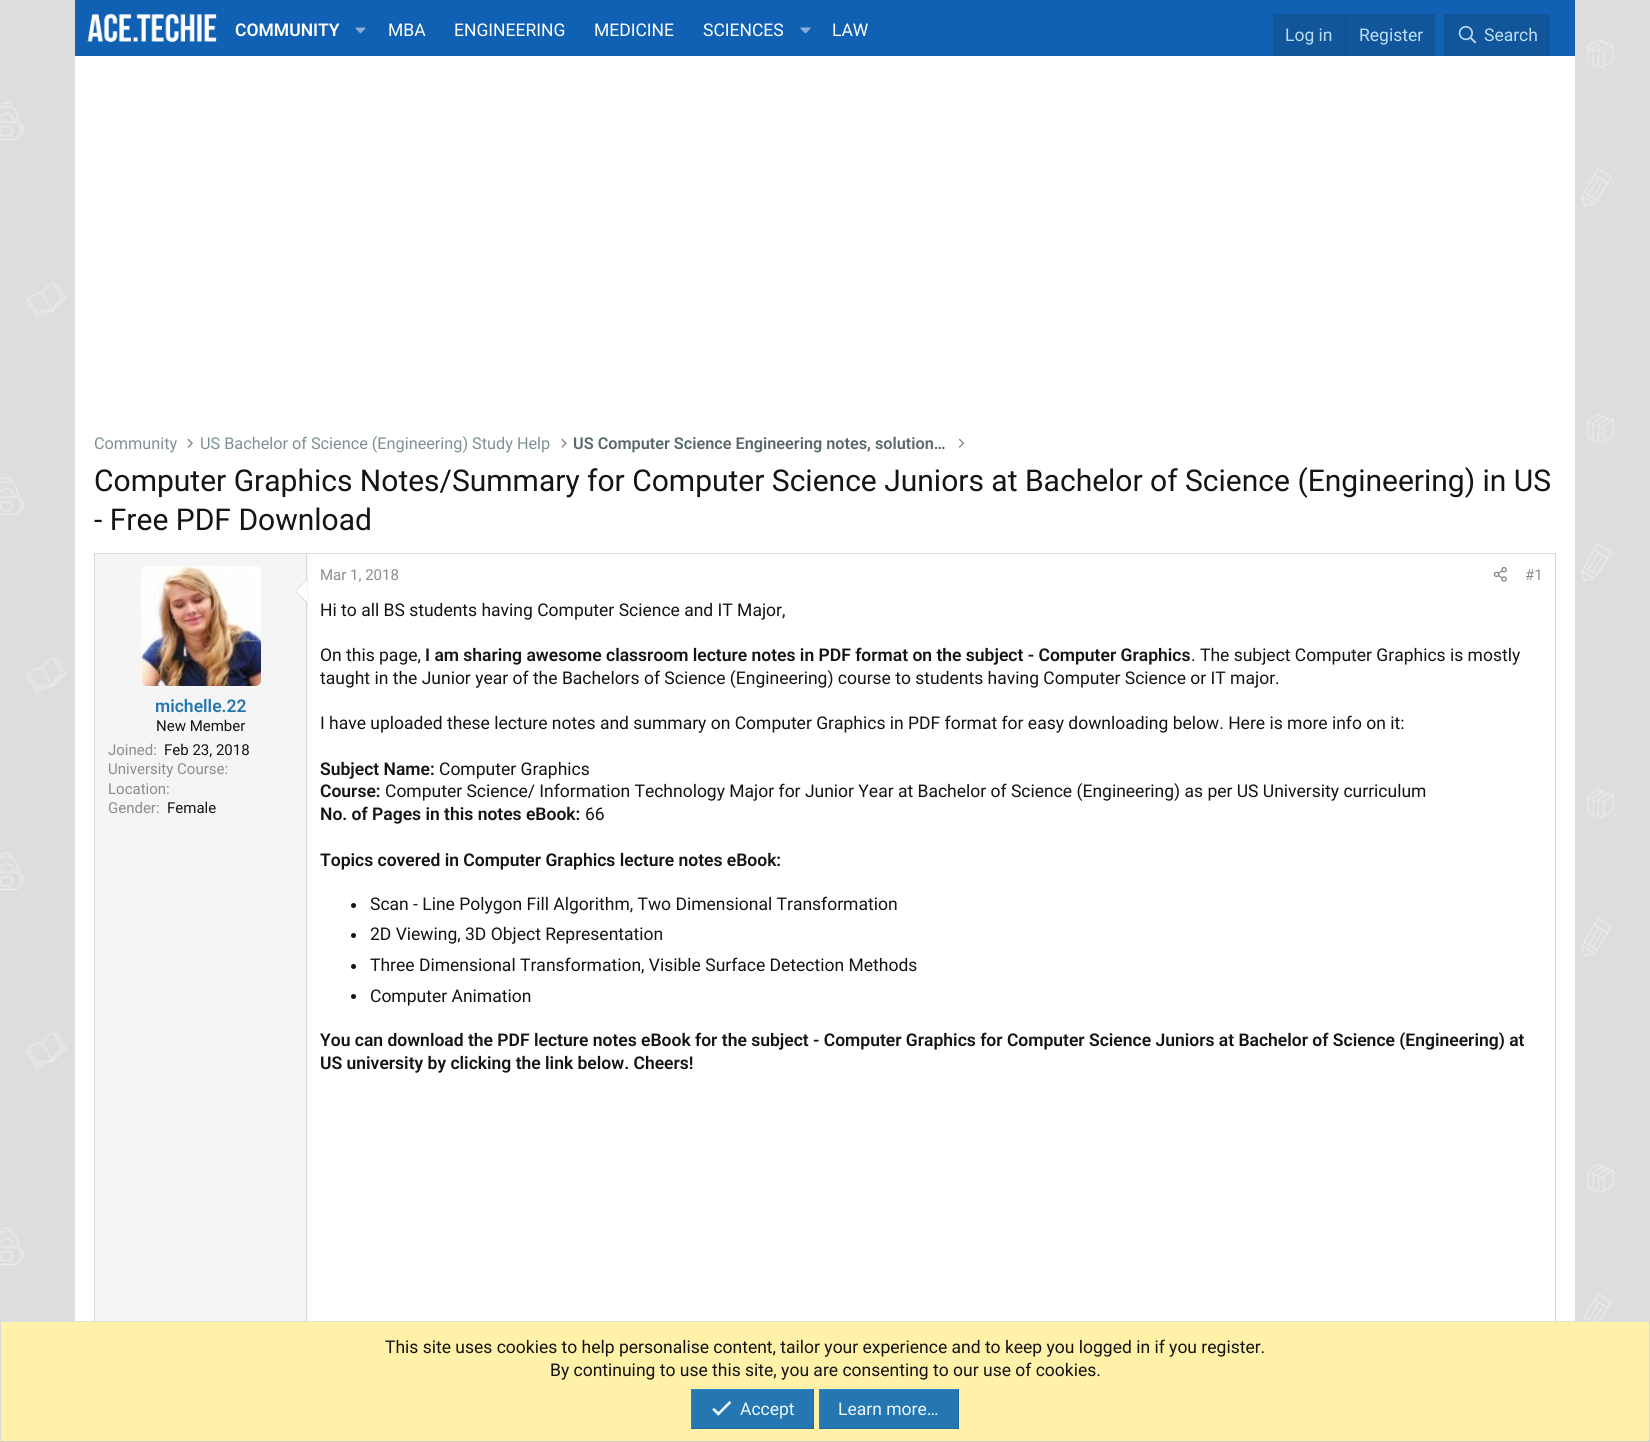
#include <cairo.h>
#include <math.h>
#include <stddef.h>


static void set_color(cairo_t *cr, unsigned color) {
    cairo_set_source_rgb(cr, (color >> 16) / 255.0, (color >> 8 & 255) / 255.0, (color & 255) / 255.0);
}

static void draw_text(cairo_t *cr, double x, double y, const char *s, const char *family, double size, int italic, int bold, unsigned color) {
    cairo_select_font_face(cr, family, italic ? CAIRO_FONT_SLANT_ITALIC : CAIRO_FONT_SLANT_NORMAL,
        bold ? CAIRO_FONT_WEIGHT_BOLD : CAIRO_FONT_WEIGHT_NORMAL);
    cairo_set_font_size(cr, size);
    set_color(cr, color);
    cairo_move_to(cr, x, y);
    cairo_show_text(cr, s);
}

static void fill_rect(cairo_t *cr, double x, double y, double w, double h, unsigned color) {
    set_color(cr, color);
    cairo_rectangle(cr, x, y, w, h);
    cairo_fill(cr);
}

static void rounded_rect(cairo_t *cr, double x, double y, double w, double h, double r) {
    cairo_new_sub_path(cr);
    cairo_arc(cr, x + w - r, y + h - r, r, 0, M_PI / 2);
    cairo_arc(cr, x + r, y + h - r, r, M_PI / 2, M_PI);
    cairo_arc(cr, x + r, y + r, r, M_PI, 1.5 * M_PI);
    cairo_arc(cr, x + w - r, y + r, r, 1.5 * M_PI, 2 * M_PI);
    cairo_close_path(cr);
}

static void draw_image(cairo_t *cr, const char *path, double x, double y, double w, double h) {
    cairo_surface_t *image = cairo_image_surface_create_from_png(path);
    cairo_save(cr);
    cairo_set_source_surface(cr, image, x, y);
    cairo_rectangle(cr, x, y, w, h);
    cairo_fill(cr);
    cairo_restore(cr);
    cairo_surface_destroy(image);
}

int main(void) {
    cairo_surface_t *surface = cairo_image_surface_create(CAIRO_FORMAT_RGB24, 1650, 1442);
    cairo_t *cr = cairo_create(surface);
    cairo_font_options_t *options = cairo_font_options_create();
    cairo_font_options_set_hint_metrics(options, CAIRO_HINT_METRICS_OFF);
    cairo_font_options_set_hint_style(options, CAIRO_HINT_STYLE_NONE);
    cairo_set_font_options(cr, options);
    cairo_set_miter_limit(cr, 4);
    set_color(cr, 0xFFFFFF);
    cairo_paint(cr);
    draw_image(cr, "assets/img1.png", 0, 0, 1650, 1321);
    fill_rect(cr, 75, 56, 1500, 1265, 0xFFFFFF);
    fill_rect(cr, 75, 0, 1500, 56, 0x1061B3);
    draw_image(cr, "assets/img2.png", 87, 13, 130, 29);
    draw_text(cr, 235, 36, "COMMUNITY", "Roboto SemiBold", 17.5, 0, 0, 0xFEFEFE);
    draw_image(cr, "assets/img3.png", 355, 27, 11, 7);
    draw_text(cr, 388, 36, "MBA", "Roboto", 17.5, 0, 0, 0xFEFEFE);
    draw_text(cr, 454, 36, "ENGINEERING", "Roboto", 17.5, 0, 0, 0xFEFEFE);
    draw_text(cr, 594, 36, "MEDICINE", "Roboto", 17.5, 0, 0, 0xFEFEFE);
    draw_text(cr, 703, 36, "SCIENCES", "Roboto", 17.5, 0, 0, 0xFEFEFE);
    draw_image(cr, "assets/img3.png", 800, 27, 11, 7);
    draw_text(cr, 832, 36, "LAW", "Roboto", 17.5, 0, 0, 0xFEFEFE);
    fill_rect(cr, 1273, 14, 162, 42, 0x11559B);
    draw_text(cr, 1285, 41, "Log in", "Roboto", 17.5, 0, 0, 0xBCDEF5);
    fill_rect(cr, 1345, 14, 1, 42, 0x114B87);
    draw_text(cr, 1359, 41, "Register", "Roboto", 17.5, 0, 0, 0xBCDEF5);
    fill_rect(cr, 1444, 14, 106, 42, 0x11559B);
    draw_image(cr, "assets/img4.png", 1458, 25, 19, 19);
    draw_text(cr, 1484, 41, "Search", "Roboto", 17.5, 0, 0, 0xBCDEF5);
    draw_text(cr, 94, 449, "Community", "Roboto", 16.25, 0, 0, 0x7C9292);
    draw_image(cr, "assets/img5.png", 187, 438, 6, 10);
    draw_text(cr, 200, 449, "US Bachelor of Science (Engineering) Study Help", "Roboto", 16.25, 0, 0, 0x7C9292);
    draw_image(cr, "assets/img6.png", 561, 438, 6, 10);
    draw_text(cr, 573, 449, "US Computer Science Engineering notes, solution…", "Roboto SemiBold", 16.25, 0, 0, 0x586969);
    draw_image(cr, "assets/img7.png", 958, 438, 7, 10);
    draw_text(cr, 94, 491, "Computer Graphics Notes/Summary for Computer Science Juniors at Bachelor of Science (Engineering) in US", "Roboto", 30, 0, 0, 0x141414);
    draw_text(cr, 94, 530, "- Free PDF Download", "Roboto", 30, 0, 0, 0x141414);
    fill_rect(cr, 94, 553, 1462, 1, 0xDFDFDF);
    fill_rect(cr, 1555, 553, 1, 768, 0xD8D8D8);
    fill_rect(cr, 94, 553, 1, 768, 0xD8D8D8);
    fill_rect(cr, 95, 554, 213, 767, 0xF5F5F5);
    fill_rect(cr, 306, 554, 1, 767, 0xD8D8D8);
    set_color(cr, 0xFEFEFE);
    rounded_rect(cr, 141, 566, 120, 120, 6);
    cairo_fill(cr);
    draw_image(cr, "assets/img8.png", 141, 566, 120, 120);
    set_color(cr, 0xD8D8D8);
    cairo_new_path(cr);
    cairo_move_to(cr, 307.5, 579);
    cairo_line_to(cr, 307.5, 604);
    cairo_line_to(cr, 295, 591);
    cairo_close_path(cr);
    cairo_fill(cr);
    set_color(cr, 0xFEFEFE);
    cairo_new_path(cr);
    cairo_move_to(cr, 307.5, 580);
    cairo_line_to(cr, 307.5, 602.5);
    cairo_line_to(cr, 296, 591);
    cairo_close_path(cr);
    cairo_fill(cr);
    draw_text(cr, 155, 712, "michelle.22", "Roboto SemiBold", 17.5, 0, 0, 0x2577B1);
    draw_text(cr, 156, 731, "New Member", "Roboto", 15, 0, 0, 0x141414);
    draw_text(cr, 108, 755, "Joined:", "Roboto", 15, 0, 0, 0x8C8C8C);
    draw_text(cr, 164, 755, "Feb 23, 2018", "Roboto", 15, 0, 0, 0x141414);
    draw_text(cr, 108, 774, "University Course:", "Roboto", 15, 0, 0, 0x8C8C8C);
    draw_text(cr, 108, 794, "Location:", "Roboto", 15, 0, 0, 0x8C8C8C);
    draw_text(cr, 108, 813, "Gender:", "Roboto", 15, 0, 0, 0x8C8C8C);
    draw_text(cr, 167, 813, "Female", "Roboto", 15, 0, 0, 0x141414);
    draw_text(cr, 320, 580, "Mar 1, 2018", "Roboto", 15, 0, 0, 0x8C8C8C);
    draw_image(cr, "assets/img9.png", 1493, 566, 14, 16);
    draw_text(cr, 1525, 580, "#1", "Roboto", 15, 0, 0, 0x8C8C8C);
    draw_text(cr, 320, 616, "Hi to all BS students having Computer Science and IT Major,", "Roboto", 17.5, 0, 0, 0x141414);
    draw_text(cr, 320, 661, "On this page,", "Roboto", 17.5, 0, 0, 0x141414);
    draw_text(cr, 425, 661, "I am sharing awesome classroom lecture notes in PDF format on the subject - Computer Graphics", "Roboto SemiBold", 17.5, 0, 0, 0x141414);
    draw_text(cr, 1191, 661, ". The subject Computer Graphics is mostly", "Roboto", 17.5, 0, 0, 0x141414);
    draw_text(cr, 320, 684, "taught in the Junior year of the Bachelors of Science (Engineering) course to students having Computer Science or IT major.", "Roboto", 17.5, 0, 0, 0x141414);
    draw_text(cr, 320, 729, "I have uploaded these lecture notes and summary on Computer Graphics in PDF format for easy downloading below. Here is more info on it:", "Roboto", 17.5, 0, 0, 0x141414);
    draw_text(cr, 320, 775, "Subject Name:", "Roboto SemiBold", 17.5, 0, 0, 0x141414);
    draw_text(cr, 439, 775, "Computer Graphics", "Roboto", 17.5, 0, 0, 0x141414);
    draw_text(cr, 320, 797, "Course:", "Roboto SemiBold", 17.5, 0, 0, 0x141414);
    draw_text(cr, 385, 797, "Computer Science/ Information Technology Major for Junior Year at Bachelor of Science (Engineering) as per US University curriculum", "Roboto", 17.5, 0, 0, 0x141414);
    draw_text(cr, 320, 820, "No. of Pages in this notes eBook:", "Roboto SemiBold", 17.5, 0, 0, 0x141414);
    draw_text(cr, 585, 820, "66", "Roboto", 17.5, 0, 0, 0x141414);
    draw_text(cr, 320, 866, "Topics covered in Computer Graphics lecture notes eBook:", "Roboto SemiBold", 17.5, 0, 0, 0x141414);
    cairo_new_path(cr);
    cairo_arc(cr, 353.5, 905.5, 2.5, 0, 2 * M_PI);
    cairo_fill(cr);
    draw_text(cr, 370, 910, "Scan - Line Polygon Fill Algorithm, Two Dimensional Transformation", "Roboto", 17.5, 0, 0, 0x141414);
    cairo_new_path(cr);
    cairo_arc(cr, 353.5, 935.5, 2.5, 0, 2 * M_PI);
    cairo_fill(cr);
    draw_text(cr, 370, 940, "2D Viewing, 3D Object Representation", "Roboto", 17.5, 0, 0, 0x141414);
    cairo_new_path(cr);
    cairo_arc(cr, 353.5, 966.5, 2.5, 0, 2 * M_PI);
    cairo_fill(cr);
    draw_text(cr, 370, 971, "Three Dimensional Transformation, Visible Surface Detection Methods", "Roboto", 17.5, 0, 0, 0x141414);
    cairo_new_path(cr);
    cairo_arc(cr, 353.5, 996.5, 2.5, 0, 2 * M_PI);
    cairo_fill(cr);
    draw_text(cr, 370, 1002, "Computer Animation", "Roboto", 17.5, 0, 0, 0x141414);
    draw_text(cr, 320, 1046, "You can download the PDF lecture notes eBook for the subject - Computer Graphics for Computer Science Juniors at Bachelor of Science (Engineering) at", "Roboto SemiBold", 17.5, 0, 0, 0x141414);
    draw_text(cr, 320, 1069, "US university by clicking the link below. Cheers!", "Roboto SemiBold", 17.5, 0, 0, 0x141414);
    fill_rect(cr, 1, 1322, 1648, 119, 0xFFF1A8);
    fill_rect(cr, 0, 1321, 1650, 1, 0xDFDFDF);
    fill_rect(cr, 1649, 1321, 1, 121, 0xD8D8D8);
    fill_rect(cr, 0, 1441, 1650, 1, 0xCBCBCB);
    fill_rect(cr, 0, 1321, 1, 121, 0xD8D8D8);
    draw_text(cr, 385, 1353, "This site uses cookies to help personalise content, tailor your experience and to keep you logged in if you register.", "Roboto", 17.5, 0, 0, 0x141414);
    draw_text(cr, 550, 1376, "By continuing to use this site, you are consenting to our use of cookies.", "Roboto", 17.5, 0, 0, 0x141414);
    fill_rect(cr, 692, 1390, 121, 38, 0x2577B1);
    fill_rect(cr, 691, 1389, 123, 1, 0x2985C6);
    fill_rect(cr, 813, 1389, 1, 40, 0x21699C);
    fill_rect(cr, 691, 1428, 123, 1, 0x21699C);
    fill_rect(cr, 691, 1389, 1, 40, 0x2985C6);
    draw_image(cr, "assets/img10.png", 712, 1401, 20, 15);
    draw_text(cr, 740, 1415, "Accept", "Roboto", 17.5, 0, 0, 0xEDF6FD);
    fill_rect(cr, 820, 1390, 138, 38, 0x2577B1);
    fill_rect(cr, 819, 1389, 140, 1, 0x2985C6);
    fill_rect(cr, 958, 1389, 1, 40, 0x21699C);
    fill_rect(cr, 819, 1428, 140, 1, 0x21699C);
    fill_rect(cr, 819, 1389, 1, 40, 0x2985C6);
    draw_text(cr, 838, 1415, "Learn more…", "Roboto", 17.5, 0, 0, 0xEDF6FD);
    cairo_surface_write_to_png(surface, "output.png");
    cairo_font_options_destroy(options);
    cairo_destroy(cr);
    cairo_surface_destroy(surface);
    return 0;
}
